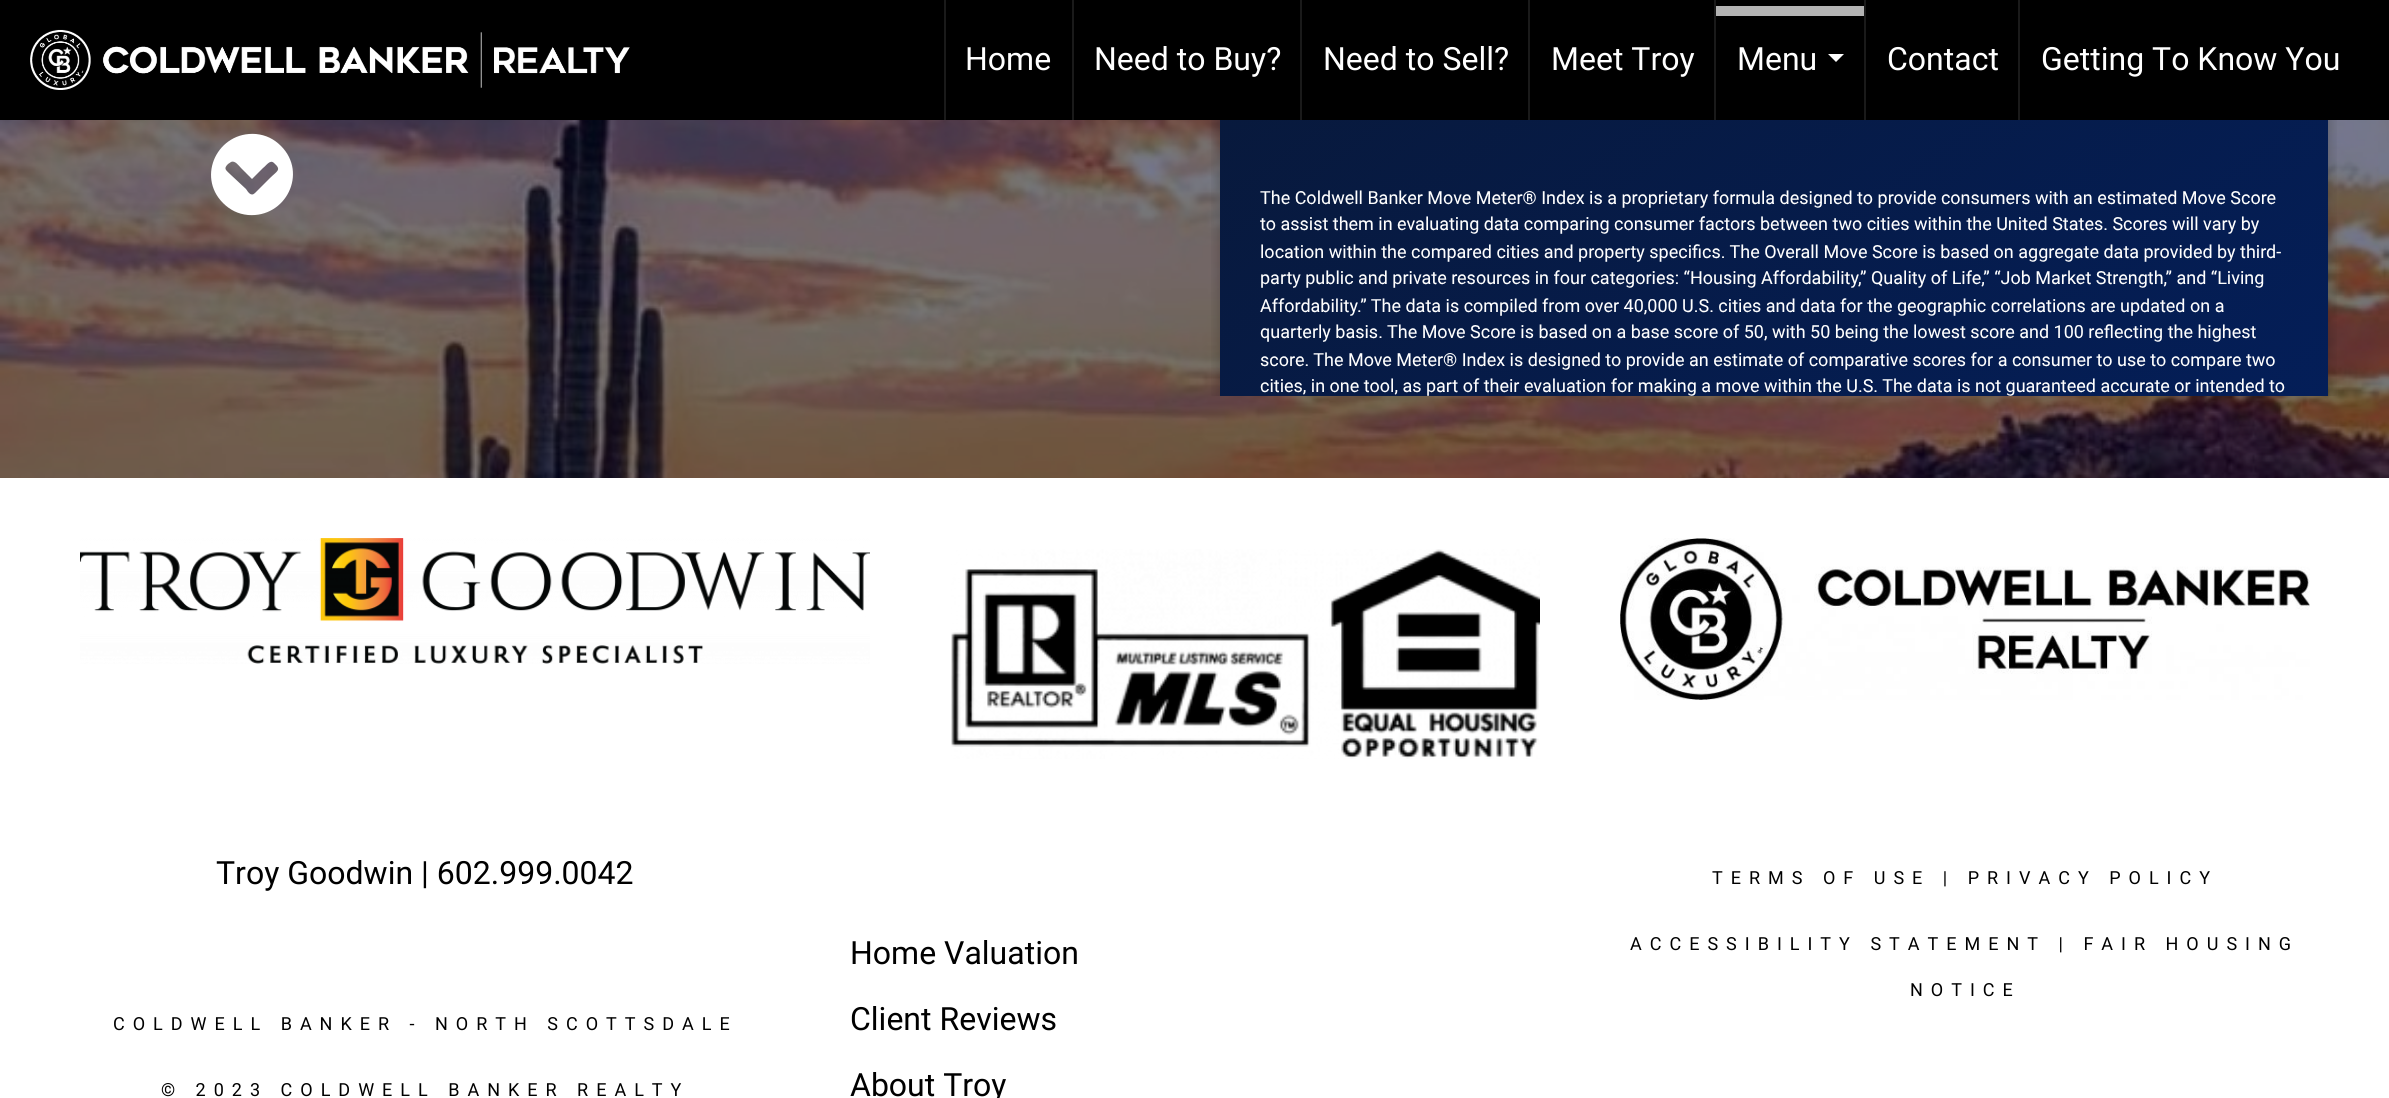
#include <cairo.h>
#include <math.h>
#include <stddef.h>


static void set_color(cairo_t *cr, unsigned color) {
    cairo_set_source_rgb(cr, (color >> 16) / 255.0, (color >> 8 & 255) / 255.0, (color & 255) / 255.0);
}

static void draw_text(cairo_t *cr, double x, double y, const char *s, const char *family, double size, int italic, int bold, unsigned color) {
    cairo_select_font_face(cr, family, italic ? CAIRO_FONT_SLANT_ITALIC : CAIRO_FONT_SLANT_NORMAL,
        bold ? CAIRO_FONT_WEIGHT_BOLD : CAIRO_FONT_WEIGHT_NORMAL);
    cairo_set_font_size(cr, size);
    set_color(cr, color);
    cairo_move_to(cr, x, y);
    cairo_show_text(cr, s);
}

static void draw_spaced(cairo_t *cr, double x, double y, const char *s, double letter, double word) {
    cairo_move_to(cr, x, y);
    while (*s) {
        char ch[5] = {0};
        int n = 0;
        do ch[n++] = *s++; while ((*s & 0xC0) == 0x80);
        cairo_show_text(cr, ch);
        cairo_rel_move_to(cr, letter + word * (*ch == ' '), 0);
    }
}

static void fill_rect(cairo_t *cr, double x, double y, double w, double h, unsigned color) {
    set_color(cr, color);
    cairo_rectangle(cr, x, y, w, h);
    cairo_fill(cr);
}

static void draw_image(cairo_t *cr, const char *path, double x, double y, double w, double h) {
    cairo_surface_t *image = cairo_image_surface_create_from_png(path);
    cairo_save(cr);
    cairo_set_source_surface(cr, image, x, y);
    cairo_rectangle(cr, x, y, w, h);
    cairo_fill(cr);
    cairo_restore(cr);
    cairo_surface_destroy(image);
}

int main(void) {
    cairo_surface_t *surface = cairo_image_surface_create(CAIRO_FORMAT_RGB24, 2389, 1098);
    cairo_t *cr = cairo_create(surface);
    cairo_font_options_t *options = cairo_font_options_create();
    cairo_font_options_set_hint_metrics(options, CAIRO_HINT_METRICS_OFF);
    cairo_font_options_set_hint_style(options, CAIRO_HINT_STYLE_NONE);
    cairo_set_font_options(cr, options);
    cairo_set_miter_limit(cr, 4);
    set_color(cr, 0xFFFFFF);
    cairo_paint(cr);
    fill_rect(cr, 0, 0, 2389, 120, 0x000000);
    draw_image(cr, "assets/img1.png", 30, 29, 600, 61);
    fill_rect(cr, 944, 0, 2, 120, 0x1A1A1A);
    draw_text(cr, 965, 70, "Home", "Roboto", 32, 0, 0, 0xFFFFFF);
    fill_rect(cr, 1072, 0, 2, 120, 0x1A1A1A);
    draw_text(cr, 1094, 70, "Need to Buy?", "Roboto", 32, 0, 0, 0xFFFFFF);
    fill_rect(cr, 1300, 0, 2, 120, 0x1A1A1A);
    draw_text(cr, 1323, 70, "Need to Sell?", "Roboto", 32, 0, 0, 0xFFFFFF);
    fill_rect(cr, 1528, 0, 2, 120, 0x1A1A1A);
    draw_text(cr, 1551, 70, "Meet Troy", "Roboto", 32, 0, 0, 0xFFFFFF);
    fill_rect(cr, 1714, 0, 2, 120, 0x1A1A1A);
    fill_rect(cr, 1716, 6, 148, 10, 0xB3B3B3);
    draw_text(cr, 1737, 70, "Menu", "Roboto", 32, 0, 0, 0xFFFFFF);
    cairo_new_path(cr);
    cairo_move_to(cr, 1828, 54);
    cairo_line_to(cr, 1844, 54);
    cairo_line_to(cr, 1836, 62);
    cairo_close_path(cr);
    cairo_fill(cr);
    fill_rect(cr, 1864, 0, 2, 120, 0x1A1A1A);
    draw_text(cr, 1887, 70, "Contact", "Roboto", 32, 0, 0, 0xFFFFFF);
    fill_rect(cr, 2018, 0, 2, 120, 0x1A1A1A);
    draw_text(cr, 2041, 70, "Getting To Know You", "Roboto", 32, 0, 0, 0xFFFFFF);
    draw_image(cr, "assets/img2.png", 0, 120, 2389, 358);
    cairo_new_path(cr);
    cairo_move_to(cr, 281, 146);
    cairo_curve_to(cr, 308, 173, 286, 218, 248, 215);
    cairo_curve_to(cr, 238, 214, 230, 210, 223, 203);
    cairo_curve_to(cr, 196, 176, 218, 131, 256, 134);
    cairo_curve_to(cr, 266, 135, 274, 139, 281, 146);
    cairo_close_path(cr);
    cairo_move_to(cr, 255, 193);
    cairo_line_to(cr, 270, 178);
    cairo_curve_to(cr, 277, 171, 282, 170, 274, 163);
    cairo_curve_to(cr, 270, 159, 266, 166, 263, 168);
    cairo_line_to(cr, 252, 179);
    cairo_line_to(cr, 241, 168);
    cairo_curve_to(cr, 239, 166, 235, 160, 231, 162);
    cairo_line_to(cr, 228, 164);
    cairo_curve_to(cr, 223, 169, 226, 170, 231, 175);
    cairo_line_to(cr, 246, 189);
    cairo_curve_to(cr, 248, 192, 251, 197, 255, 193);
    cairo_close_path(cr);
    cairo_fill(cr);
    draw_image(cr, "assets/img3.png", 1211, 120, 1126, 276);
    draw_image(cr, "assets/img4.png", 80, 538, 790, 126);
    draw_image(cr, "assets/img5.png", 951, 549, 589, 210);
    draw_image(cr, "assets/img6.png", 1620, 538, 690, 162);
    draw_text(cr, 216, 884, "Troy Goodwin | 602.999.0042", "Roboto", 32, 0, 0, 0x000000);
    cairo_set_font_size(cr, 18);
    draw_spaced(cr, 113, 1030, "COLDWELL BANKER - NORTH SCOTTSDALE", 8, 0);
    draw_spaced(cr, 161, 1096, "© 2023 COLDWELL BANKER REALTY", 8, 0);
    draw_text(cr, 850, 964, "Home Valuation", "Roboto", 32, 0, 0, 0x000000);
    draw_text(cr, 850, 1030, "Client Reviews", "Roboto", 32, 0, 0, 0x000000);
    draw_text(cr, 850, 1096, "About Troy", "Roboto", 32, 0, 0, 0x000000);
    cairo_set_font_size(cr, 18);
    draw_spaced(cr, 1712, 884, "TERMS OF USE | PRIVACY POLICY", 8, 0);
    draw_spaced(cr, 1630, 950, "ACCESSIBILITY STATEMENT | FAIR HOUSING", 8, 0);
    draw_spaced(cr, 1910, 996, "NOTICE", 8, 0);
    cairo_surface_write_to_png(surface, "output.png");
    cairo_font_options_destroy(options);
    cairo_destroy(cr);
    cairo_surface_destroy(surface);
    return 0;
}
